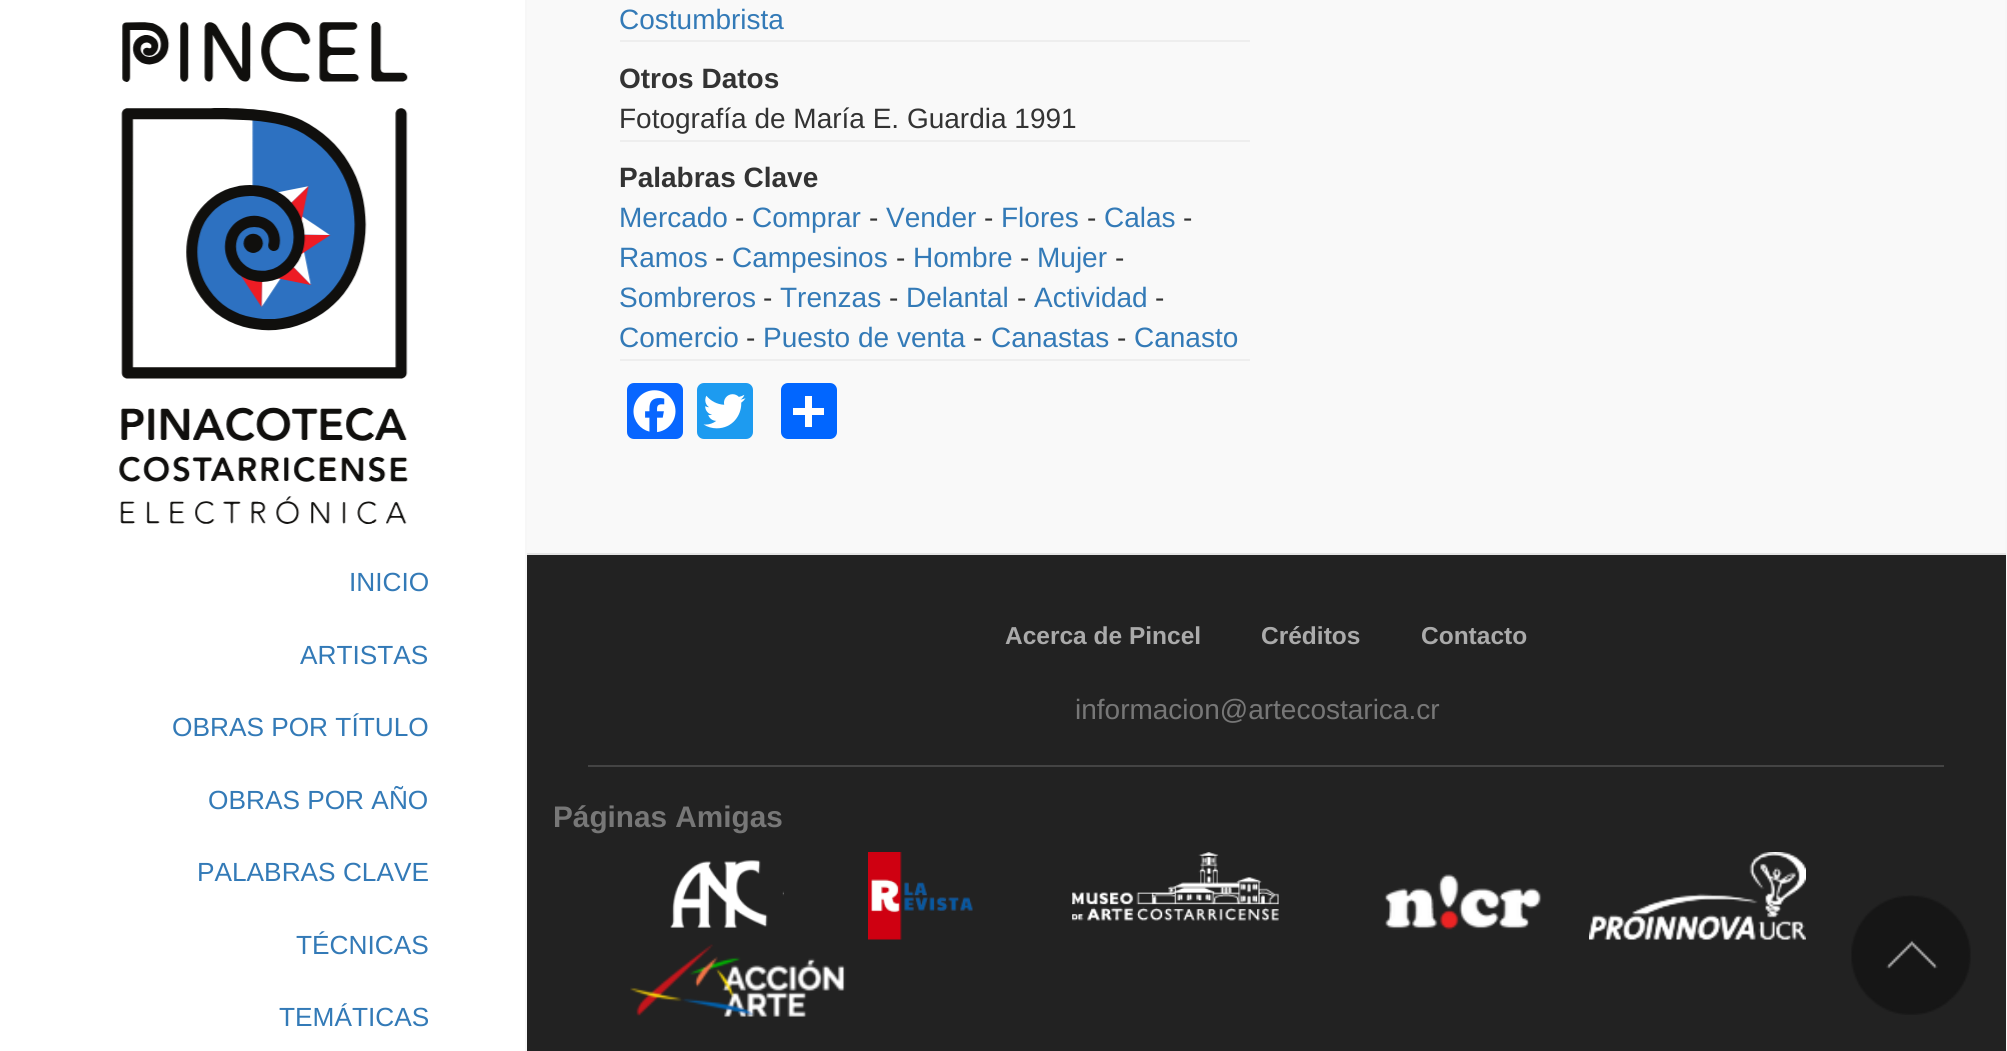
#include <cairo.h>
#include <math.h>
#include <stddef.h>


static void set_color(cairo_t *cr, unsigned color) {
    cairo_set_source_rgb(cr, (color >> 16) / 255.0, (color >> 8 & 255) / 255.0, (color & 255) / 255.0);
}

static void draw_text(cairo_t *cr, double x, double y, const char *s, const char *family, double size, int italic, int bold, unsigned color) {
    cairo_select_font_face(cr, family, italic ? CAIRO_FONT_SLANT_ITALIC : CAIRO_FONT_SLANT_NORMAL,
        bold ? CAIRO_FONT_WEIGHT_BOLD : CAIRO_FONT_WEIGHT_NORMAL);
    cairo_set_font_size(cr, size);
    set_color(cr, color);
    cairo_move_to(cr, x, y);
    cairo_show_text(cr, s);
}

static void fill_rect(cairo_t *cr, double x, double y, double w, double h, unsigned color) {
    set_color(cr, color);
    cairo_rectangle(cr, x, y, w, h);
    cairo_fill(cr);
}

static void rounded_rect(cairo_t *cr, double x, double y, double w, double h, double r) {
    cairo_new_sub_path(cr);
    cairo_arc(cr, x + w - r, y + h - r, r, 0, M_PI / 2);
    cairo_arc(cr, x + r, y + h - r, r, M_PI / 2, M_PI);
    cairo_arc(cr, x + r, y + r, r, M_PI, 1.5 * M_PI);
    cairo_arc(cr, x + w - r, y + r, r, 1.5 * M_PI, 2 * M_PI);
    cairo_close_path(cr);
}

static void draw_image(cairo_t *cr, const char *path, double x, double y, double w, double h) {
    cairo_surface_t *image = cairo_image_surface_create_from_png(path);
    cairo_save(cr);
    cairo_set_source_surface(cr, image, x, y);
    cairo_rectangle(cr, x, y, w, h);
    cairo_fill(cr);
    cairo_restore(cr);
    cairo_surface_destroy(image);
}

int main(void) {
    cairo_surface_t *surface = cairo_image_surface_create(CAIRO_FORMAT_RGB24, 2007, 1051);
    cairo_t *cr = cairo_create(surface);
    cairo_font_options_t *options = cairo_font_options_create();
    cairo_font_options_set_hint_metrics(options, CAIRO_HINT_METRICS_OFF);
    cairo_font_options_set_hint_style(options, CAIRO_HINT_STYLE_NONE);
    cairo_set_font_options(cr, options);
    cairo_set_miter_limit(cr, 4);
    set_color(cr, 0xFFFFFF);
    cairo_paint(cr);
    draw_image(cr, "assets/img1.png", 119, 22, 289, 502);
    draw_text(cr, 349, 591, "INICIO", "Liberation Sans", 26.25, 0, 0, 0x337AB7);
    draw_text(cr, 300, 664, "ARTISTAS", "Liberation Sans", 26.25, 0, 0, 0x337AB7);
    draw_text(cr, 172, 736, "OBRAS POR TÍTULO", "Liberation Sans", 26.25, 0, 0, 0x337AB7);
    draw_text(cr, 208, 809, "OBRAS POR AÑO", "Liberation Sans", 26.25, 0, 0, 0x337AB7);
    draw_text(cr, 197, 881, "PALABRAS CLAVE", "Liberation Sans", 26.25, 0, 0, 0x337AB7);
    draw_text(cr, 296, 954, "TÉCNICAS", "Liberation Sans", 26.25, 0, 0, 0x337AB7);
    draw_text(cr, 279, 1026, "TEMÁTICAS", "Liberation Sans", 26.25, 0, 0, 0x337AB7);
    fill_rect(cr, 527, 0, 1478, 553, 0xF9F9F9);
    cairo_rectangle(cr, 526, -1, 1480, 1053);
    set_color(cr, 0xF7F7F7);
    cairo_stroke(cr);
    fill_rect(cr, 620, 40, 630, 2, 0xEEEEEE);
    draw_text(cr, 619, 29, "Costumbrista", "Liberation Sans", 28, 0, 0, 0x337AB7);
    fill_rect(cr, 620, 140, 630, 2, 0xEEEEEE);
    draw_text(cr, 619, 88, "Otros Datos", "Liberation Sans", 28, 0, 1, 0x333333);
    draw_text(cr, 619, 128, "Fotografía de María E. Guardia 1991", "Liberation Sans", 28, 0, 0, 0x333333);
    fill_rect(cr, 620, 359, 630, 2, 0xEEEEEE);
    draw_text(cr, 619, 187, "Palabras Clave", "Liberation Sans", 28, 0, 1, 0x333333);
    draw_text(cr, 619, 227, "Mercado", "Liberation Sans", 28, 0, 0, 0x337AB7);
    draw_text(cr, 735, 227, "-", "Liberation Sans", 28, 0, 0, 0x333333);
    draw_text(cr, 752, 227, "Comprar", "Liberation Sans", 28, 0, 0, 0x337AB7);
    draw_text(cr, 869, 227, "-", "Liberation Sans", 28, 0, 0, 0x333333);
    draw_text(cr, 886, 227, "Vender", "Liberation Sans", 28, 0, 0, 0x337AB7);
    draw_text(cr, 984, 227, "-", "Liberation Sans", 28, 0, 0, 0x333333);
    draw_text(cr, 1001, 227, "Flores", "Liberation Sans", 28, 0, 0, 0x337AB7);
    draw_text(cr, 1087, 227, "-", "Liberation Sans", 28, 0, 0, 0x333333);
    draw_text(cr, 1104, 227, "Calas", "Liberation Sans", 28, 0, 0, 0x337AB7);
    draw_text(cr, 1183, 227, "-", "Liberation Sans", 28, 0, 0, 0x333333);
    draw_text(cr, 619, 267, "Ramos", "Liberation Sans", 28, 0, 0, 0x337AB7);
    draw_text(cr, 715, 267, "-", "Liberation Sans", 28, 0, 0, 0x333333);
    draw_text(cr, 732, 267, "Campesinos", "Liberation Sans", 28, 0, 0, 0x337AB7);
    draw_text(cr, 896, 267, "-", "Liberation Sans", 28, 0, 0, 0x333333);
    draw_text(cr, 913, 267, "Hombre", "Liberation Sans", 28, 0, 0, 0x337AB7);
    draw_text(cr, 1020, 267, "-", "Liberation Sans", 28, 0, 0, 0x333333);
    draw_text(cr, 1037, 267, "Mujer", "Liberation Sans", 28, 0, 0, 0x337AB7);
    draw_text(cr, 1115, 267, "-", "Liberation Sans", 28, 0, 0, 0x333333);
    draw_text(cr, 619, 307, "Sombreros", "Liberation Sans", 28, 0, 0, 0x337AB7);
    draw_text(cr, 763, 307, "-", "Liberation Sans", 28, 0, 0, 0x333333);
    draw_text(cr, 780, 307, "Trenzas", "Liberation Sans", 28, 0, 0, 0x337AB7);
    draw_text(cr, 889, 307, "-", "Liberation Sans", 28, 0, 0, 0x333333);
    draw_text(cr, 906, 307, "Delantal", "Liberation Sans", 28, 0, 0, 0x337AB7);
    draw_text(cr, 1017, 307, "-", "Liberation Sans", 28, 0, 0, 0x333333);
    draw_text(cr, 1034, 307, "Actividad", "Liberation Sans", 28, 0, 0, 0x337AB7);
    draw_text(cr, 1155, 307, "-", "Liberation Sans", 28, 0, 0, 0x333333);
    draw_text(cr, 619, 347, "Comercio", "Liberation Sans", 28, 0, 0, 0x337AB7);
    draw_text(cr, 746, 347, "-", "Liberation Sans", 28, 0, 0, 0x333333);
    draw_text(cr, 763, 347, "Puesto de venta", "Liberation Sans", 28, 0, 0, 0x337AB7);
    draw_text(cr, 973, 347, "-", "Liberation Sans", 28, 0, 0, 0x333333);
    draw_text(cr, 991, 347, "Canastas", "Liberation Sans", 28, 0, 0, 0x337AB7);
    draw_text(cr, 1117, 347, "-", "Liberation Sans", 28, 0, 0, 0x333333);
    draw_text(cr, 1134, 347, "Canasto", "Liberation Sans", 28, 0, 0, 0x337AB7);
    set_color(cr, 0x0866FF);
    rounded_rect(cr, 627, 383, 56, 56, 7);
    cairo_fill(cr);
    draw_image(cr, "assets/img2.png", 633, 390, 43, 43);
    set_color(cr, 0x1D9BF0);
    rounded_rect(cr, 697, 383, 56, 56, 7);
    cairo_fill(cr);
    draw_image(cr, "assets/img3.png", 703, 394, 43, 35);
    set_color(cr, 0x0166FF);
    rounded_rect(cr, 781, 383, 56, 56, 7);
    cairo_fill(cr);
    fill_rect(cr, 805, 396, 7, 31, 0xFFFFFF);
    fill_rect(cr, 793, 408, 31, 7, 0xFFFFFF);
    fill_rect(cr, 527, 555, 1479, 496, 0x222222);
    fill_rect(cr, 527, 553, 1479, 2, 0xE5E5E5);
    draw_text(cr, 1005, 644, "Acerca de Pincel", "Liberation Sans", 24.5, 0, 1, 0xAAAAAA);
    draw_text(cr, 1261, 644, "Créditos", "Liberation Sans", 24.5, 0, 1, 0xAAAAAA);
    draw_text(cr, 1421, 644, "Contacto", "Liberation Sans", 24.5, 0, 1, 0xAAAAAA);
    fill_rect(cr, 588, 765, 1356, 2, 0x444444);
    draw_text(cr, 1075, 719, "informacion@artecostarica.cr", "Liberation Sans", 28, 0, 0, 0x777777);
    draw_text(cr, 553, 827, "Páginas Amigas", "Liberation Sans", 29.75, 0, 1, 0x777777);
    draw_image(cr, "assets/img4.png", 670, 860, 114, 68);
    draw_image(cr, "assets/img5.png", 868, 852, 105, 88);
    draw_image(cr, "assets/img6.png", 1072, 852, 207, 69);
    draw_image(cr, "assets/img7.png", 1384, 874, 158, 56);
    draw_image(cr, "assets/img8.png", 1589, 852, 217, 88);
    draw_image(cr, "assets/img9.png", 630, 944, 216, 73);
    draw_image(cr, "assets/img10.png", 1851, 895, 120, 120);
    cairo_surface_write_to_png(surface, "output.png");
    cairo_font_options_destroy(options);
    cairo_destroy(cr);
    cairo_surface_destroy(surface);
    return 0;
}
